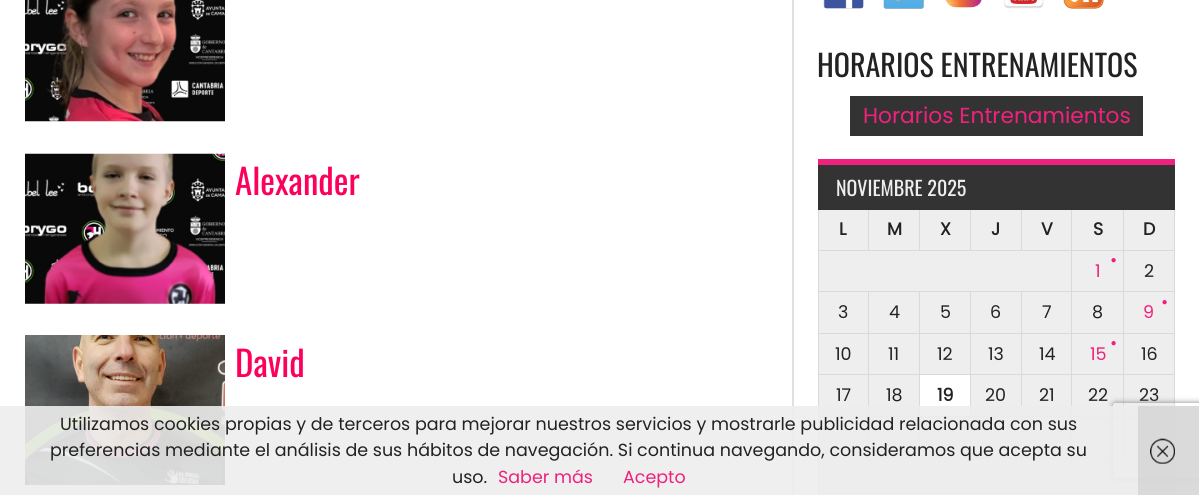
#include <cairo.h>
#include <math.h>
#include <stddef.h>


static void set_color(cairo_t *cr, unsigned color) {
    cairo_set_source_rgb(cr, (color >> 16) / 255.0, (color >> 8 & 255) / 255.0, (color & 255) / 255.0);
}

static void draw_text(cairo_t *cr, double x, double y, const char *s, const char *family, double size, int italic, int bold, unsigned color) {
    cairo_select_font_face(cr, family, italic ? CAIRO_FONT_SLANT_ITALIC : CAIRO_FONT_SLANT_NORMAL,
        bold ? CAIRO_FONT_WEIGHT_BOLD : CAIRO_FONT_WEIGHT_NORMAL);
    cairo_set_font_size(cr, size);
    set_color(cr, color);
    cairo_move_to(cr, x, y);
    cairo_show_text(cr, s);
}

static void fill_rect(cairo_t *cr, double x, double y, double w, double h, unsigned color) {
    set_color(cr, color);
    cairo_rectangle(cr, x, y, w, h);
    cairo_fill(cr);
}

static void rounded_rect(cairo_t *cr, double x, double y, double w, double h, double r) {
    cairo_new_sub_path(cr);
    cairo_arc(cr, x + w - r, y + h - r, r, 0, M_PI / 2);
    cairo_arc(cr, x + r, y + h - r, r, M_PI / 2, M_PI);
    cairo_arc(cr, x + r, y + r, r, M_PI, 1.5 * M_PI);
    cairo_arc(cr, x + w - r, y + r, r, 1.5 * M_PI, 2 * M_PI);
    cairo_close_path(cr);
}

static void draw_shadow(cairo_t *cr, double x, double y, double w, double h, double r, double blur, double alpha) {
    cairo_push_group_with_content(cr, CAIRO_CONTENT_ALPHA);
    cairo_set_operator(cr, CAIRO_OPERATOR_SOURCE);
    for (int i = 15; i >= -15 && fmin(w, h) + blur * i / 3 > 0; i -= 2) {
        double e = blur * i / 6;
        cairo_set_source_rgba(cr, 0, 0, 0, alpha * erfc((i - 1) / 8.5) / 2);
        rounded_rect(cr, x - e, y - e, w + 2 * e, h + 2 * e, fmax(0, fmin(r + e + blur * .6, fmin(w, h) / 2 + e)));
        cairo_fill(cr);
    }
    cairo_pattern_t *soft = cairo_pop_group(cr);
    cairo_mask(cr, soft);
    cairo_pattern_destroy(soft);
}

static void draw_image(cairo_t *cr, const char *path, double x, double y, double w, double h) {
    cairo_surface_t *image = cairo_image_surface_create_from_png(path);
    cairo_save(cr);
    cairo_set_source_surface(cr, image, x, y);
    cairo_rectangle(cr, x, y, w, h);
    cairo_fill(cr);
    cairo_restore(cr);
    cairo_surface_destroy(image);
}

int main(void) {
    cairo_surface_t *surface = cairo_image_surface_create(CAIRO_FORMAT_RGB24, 1199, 495);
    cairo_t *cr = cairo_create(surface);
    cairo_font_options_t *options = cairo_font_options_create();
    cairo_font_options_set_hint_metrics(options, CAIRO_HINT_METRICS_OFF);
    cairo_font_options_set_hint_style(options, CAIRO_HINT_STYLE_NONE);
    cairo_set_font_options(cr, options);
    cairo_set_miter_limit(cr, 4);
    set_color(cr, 0xFFFFFF);
    cairo_paint(cr);
    set_color(cr, 0xE0E0E0);
    cairo_new_path(cr);
    cairo_move_to(cr, 1, -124);
    cairo_line_to(cr, 792, -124);
    cairo_line_to(cr, 792, 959);
    cairo_line_to(cr, 1, 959);
    cairo_line_to(cr, 794, 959);
    cairo_line_to(cr, 794, -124);
    cairo_close_path(cr);
    cairo_fill(cr);
    draw_image(cr, "assets/img1.png", 25, 0, 200, 122);
    draw_image(cr, "assets/img2.png", 25, 153, 200, 151);
    draw_text(cr, 235, 195, "Alexander", "Oswald", 35, 0, 0, 0xFC005C);
    draw_image(cr, "assets/img3.png", 25, 335, 200, 150);
    draw_text(cr, 235, 377, "David", "Oswald", 35, 0, 0, 0xFC005C);
    draw_image(cr, "assets/img4.png", 823, 0, 41, 9);
    draw_image(cr, "assets/img5.png", 883, 0, 41, 9);
    draw_image(cr, "assets/img6.png", 945, 0, 37, 8);
    draw_image(cr, "assets/img7.png", 1004, 0, 40, 9);
    draw_image(cr, "assets/img8.png", 1063, 0, 41, 9);
    draw_text(cr, 817, 77, "HORARIOS ENTRENAMIENTOS", "Oswald", 30, 0, 0, 0x222222);
    fill_rect(cr, 850, 96, 293, 40, 0x333333);
    draw_text(cr, 863, 123, "Horarios Entrenamientos", "Poppins", 21.75, 0, 0, 0xF0207D);
    fill_rect(cr, 819, 210, 355, 285, 0xEEEEEE);
    fill_rect(cr, 1174, 210, 1, 285, 0xDADADA);
    fill_rect(cr, 818, 210, 1, 285, 0xDADADA);
    fill_rect(cr, 1123, 250, 52, 1, 0xDADADA);
    fill_rect(cr, 1123, 291, 52, 1, 0xDADADA);
    fill_rect(cr, 1123, 333, 52, 1, 0xDADADA);
    fill_rect(cr, 1123, 374, 52, 1, 0xDADADA);
    fill_rect(cr, 1123, 416, 52, 1, 0xDADADA);
    fill_rect(cr, 1123, 458, 52, 1, 0xDADADA);
    fill_rect(cr, 1123, 416, 1, 43, 0xDADADA);
    fill_rect(cr, 1071, 416, 53, 1, 0xDADADA);
    fill_rect(cr, 1123, 374, 1, 44, 0xDADADA);
    fill_rect(cr, 1071, 374, 53, 1, 0xDADADA);
    fill_rect(cr, 1123, 333, 1, 42, 0xDADADA);
    fill_rect(cr, 1071, 333, 53, 1, 0xDADADA);
    fill_rect(cr, 1123, 291, 1, 43, 0xDADADA);
    fill_rect(cr, 1071, 291, 53, 1, 0xDADADA);
    fill_rect(cr, 1123, 250, 1, 43, 0xDADADA);
    fill_rect(cr, 1071, 250, 53, 1, 0xDADADA);
    fill_rect(cr, 1071, 458, 53, 1, 0xDADADA);
    fill_rect(cr, 1071, 416, 1, 43, 0xDADADA);
    fill_rect(cr, 1021, 416, 52, 1, 0xDADADA);
    fill_rect(cr, 1071, 374, 1, 44, 0xDADADA);
    fill_rect(cr, 1021, 374, 52, 1, 0xDADADA);
    fill_rect(cr, 1071, 333, 1, 42, 0xDADADA);
    fill_rect(cr, 1021, 333, 52, 1, 0xDADADA);
    fill_rect(cr, 1071, 291, 1, 43, 0xDADADA);
    fill_rect(cr, 1021, 291, 52, 1, 0xDADADA);
    fill_rect(cr, 1071, 250, 1, 43, 0xDADADA);
    fill_rect(cr, 818, 250, 255, 1, 0xDADADA);
    fill_rect(cr, 868, 209, 1, 42, 0xDADADA);
    fill_rect(cr, 919, 209, 1, 42, 0xDADADA);
    fill_rect(cr, 970, 209, 1, 42, 0xDADADA);
    fill_rect(cr, 1021, 209, 1, 42, 0xDADADA);
    fill_rect(cr, 1071, 209, 1, 42, 0xDADADA);
    fill_rect(cr, 1123, 209, 1, 42, 0xDADADA);
    fill_rect(cr, 818, 165, 357, 45, 0x333333);
    fill_rect(cr, 818, 159, 357, 6, 0xF0207D);
    draw_text(cr, 836, 196, "NOVIEMBRE 2025", "Oswald", 20, 0, 0, 0xEEEEEE);
    draw_text(cr, 839, 235, "L", "Poppins", 17.5, 0, 1, 0x222222);
    draw_text(cr, 887, 235, "M", "Poppins", 17.5, 0, 1, 0x222222);
    draw_text(cr, 940, 235, "X", "Poppins", 17.5, 0, 1, 0x222222);
    draw_text(cr, 991, 235, "J", "Poppins", 17.5, 0, 1, 0x222222);
    draw_text(cr, 1041, 235, "V", "Poppins", 17.5, 0, 1, 0x222222);
    draw_text(cr, 1093, 235, "S", "Poppins", 17.5, 0, 1, 0x222222);
    draw_text(cr, 1143, 235, "D", "Poppins", 17.5, 0, 1, 0x222222);
    draw_text(cr, 1110, 266, "•", "Poppins", 17.5, 0, 0, 0xF0207D);
    draw_text(cr, 1095, 277, "1", "Poppins", 17.5, 0, 0, 0xF0207D);
    draw_text(cr, 1144, 277, "2", "Poppins", 17.5, 0, 0, 0x222222);
    fill_rect(cr, 1021, 458, 52, 1, 0xDADADA);
    fill_rect(cr, 1021, 416, 1, 43, 0xDADADA);
    fill_rect(cr, 970, 416, 53, 1, 0xDADADA);
    fill_rect(cr, 1021, 374, 1, 44, 0xDADADA);
    fill_rect(cr, 970, 374, 53, 1, 0xDADADA);
    fill_rect(cr, 1021, 333, 1, 42, 0xDADADA);
    fill_rect(cr, 970, 333, 53, 1, 0xDADADA);
    fill_rect(cr, 1021, 291, 1, 43, 0xDADADA);
    fill_rect(cr, 970, 291, 53, 1, 0xDADADA);
    fill_rect(cr, 970, 458, 53, 1, 0xDADADA);
    fill_rect(cr, 970, 416, 1, 43, 0xDADADA);
    fill_rect(cr, 919, 416, 52, 1, 0xDADADA);
    fill_rect(cr, 970, 374, 1, 44, 0xDADADA);
    fill_rect(cr, 919, 374, 52, 1, 0xDADADA);
    fill_rect(cr, 970, 333, 1, 42, 0xDADADA);
    fill_rect(cr, 919, 333, 52, 1, 0xDADADA);
    fill_rect(cr, 970, 291, 1, 43, 0xDADADA);
    fill_rect(cr, 919, 291, 52, 1, 0xDADADA);
    fill_rect(cr, 919, 458, 52, 1, 0xDADADA);
    fill_rect(cr, 919, 416, 1, 43, 0xDADADA);
    fill_rect(cr, 868, 416, 52, 1, 0xDADADA);
    fill_rect(cr, 919, 374, 1, 44, 0xDADADA);
    fill_rect(cr, 868, 374, 52, 1, 0xDADADA);
    fill_rect(cr, 919, 333, 1, 42, 0xDADADA);
    fill_rect(cr, 868, 333, 52, 1, 0xDADADA);
    fill_rect(cr, 919, 291, 1, 43, 0xDADADA);
    fill_rect(cr, 868, 291, 52, 1, 0xDADADA);
    fill_rect(cr, 868, 458, 52, 1, 0xDADADA);
    fill_rect(cr, 868, 416, 1, 43, 0xDADADA);
    fill_rect(cr, 818, 416, 51, 1, 0xDADADA);
    fill_rect(cr, 868, 374, 1, 44, 0xDADADA);
    fill_rect(cr, 818, 374, 51, 1, 0xDADADA);
    fill_rect(cr, 868, 333, 1, 42, 0xDADADA);
    fill_rect(cr, 818, 333, 51, 1, 0xDADADA);
    fill_rect(cr, 868, 291, 1, 43, 0xDADADA);
    fill_rect(cr, 818, 291, 51, 1, 0xDADADA);
    draw_text(cr, 838, 318, "3", "Poppins", 17.5, 0, 0, 0x222222);
    draw_text(cr, 889, 318, "4", "Poppins", 17.5, 0, 0, 0x222222);
    draw_text(cr, 940, 318, "5", "Poppins", 17.5, 0, 0, 0x222222);
    draw_text(cr, 990, 318, "6", "Poppins", 17.5, 0, 0, 0x222222);
    draw_text(cr, 1042, 318, "7", "Poppins", 17.5, 0, 0, 0x222222);
    draw_text(cr, 1092, 318, "8", "Poppins", 17.5, 0, 0, 0x222222);
    draw_text(cr, 1161, 308, "•", "Poppins", 17.5, 0, 0, 0xF0207D);
    draw_text(cr, 1143, 318, "9", "Poppins", 17.5, 0, 0, 0xF0207D);
    draw_text(cr, 835, 360, "10", "Poppins", 17.5, 0, 0, 0x222222);
    draw_text(cr, 888, 360, "11", "Poppins", 17.5, 0, 0, 0x222222);
    draw_text(cr, 937, 360, "12", "Poppins", 17.5, 0, 0, 0x222222);
    draw_text(cr, 988, 360, "13", "Poppins", 17.5, 0, 0, 0x222222);
    draw_text(cr, 1039, 360, "14", "Poppins", 17.5, 0, 0, 0x222222);
    draw_text(cr, 1110, 349, "•", "Poppins", 17.5, 0, 0, 0xF0207D);
    draw_text(cr, 1090, 360, "15", "Poppins", 17.5, 0, 0, 0xF0207D);
    draw_text(cr, 1141, 360, "16", "Poppins", 17.5, 0, 0, 0x222222);
    draw_text(cr, 836, 401, "17", "Poppins", 17.5, 0, 0, 0x222222);
    draw_text(cr, 886, 401, "18", "Poppins", 17.5, 0, 0, 0x222222);
    fill_rect(cr, 920, 375, 50, 41, 0xFFFFFF);
    draw_text(cr, 937, 401, "19", "Poppins", 17.5, 0, 1, 0x222222);
    draw_text(cr, 985, 401, "20", "Poppins", 17.5, 0, 0, 0x222222);
    draw_text(cr, 1039, 401, "21", "Poppins", 17.5, 0, 0, 0x222222);
    draw_text(cr, 1088, 401, "22", "Poppins", 17.5, 0, 0, 0x222222);
    draw_text(cr, 1139, 401, "23", "Poppins", 17.5, 0, 0, 0x222222);
    fill_rect(cr, 818, 458, 51, 1, 0xDADADA);
    fill_rect(cr, 970, 458, 1, 37, 0xDADADA);
    fill_rect(cr, 1021, 458, 1, 37, 0xDADADA);
    cairo_save(cr);
    cairo_set_fill_rule(cr, CAIRO_FILL_RULE_EVEN_ODD);
    cairo_new_path(cr);
    cairo_move_to(cr, 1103, 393);
    cairo_line_to(cr, 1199, 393);
    cairo_line_to(cr, 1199, 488);
    cairo_line_to(cr, 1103, 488);
    cairo_close_path(cr);
    cairo_move_to(cr, 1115.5, 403);
    cairo_line_to(cr, 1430.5, 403);
    cairo_curve_to(cr, 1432, 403, 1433, 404, 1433, 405.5);
    cairo_line_to(cr, 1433, 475.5);
    cairo_curve_to(cr, 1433, 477, 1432, 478, 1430.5, 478);
    cairo_line_to(cr, 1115.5, 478);
    cairo_curve_to(cr, 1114, 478, 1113, 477, 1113, 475.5);
    cairo_line_to(cr, 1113, 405.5);
    cairo_curve_to(cr, 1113, 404, 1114, 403, 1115.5, 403);
    cairo_close_path(cr);
    cairo_clip(cr);
    set_color(cr, 0x808080);
    draw_shadow(cr, 1113, 403, 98, 75, 2.5, 3, 1);
    cairo_restore(cr);
    cairo_set_source_rgba(cr, 0.933, 0.933, 0.933, 0.9);
    cairo_rectangle(cr, 0, 406, 1199, 89);
    cairo_fill(cr);
    draw_text(cr, 60, 430, "Utilizamos cookies propias y de terceros para mejorar nuestros servicios y mostrarle publicidad relacionada con sus", "Poppins", 17.5, 0, 0, 0x222222);
    draw_text(cr, 50, 456, "preferencias mediante el análisis de sus hábitos de navegación. Si continua navegando, consideramos que acepta su", "Poppins", 17.5, 0, 0, 0x222222);
    draw_text(cr, 452, 483, "uso.", "Poppins", 17.5, 0, 0, 0x222222);
    draw_text(cr, 498, 483, "Saber más", "Poppins", 17.5, 0, 0, 0xF0207D);
    draw_text(cr, 623, 483, "Acepto", "Poppins", 17.5, 0, 0, 0xF0207D);
    cairo_set_source_rgba(cr, 0.8, 0.8, 0.8, 0.6);
    cairo_rectangle(cr, 1138, 406, 61, 89);
    cairo_fill(cr);
    draw_image(cr, "assets/img9.png", 1150, 438, 25, 26);
    cairo_surface_write_to_png(surface, "output.png");
    cairo_font_options_destroy(options);
    cairo_destroy(cr);
    cairo_surface_destroy(surface);
    return 0;
}
